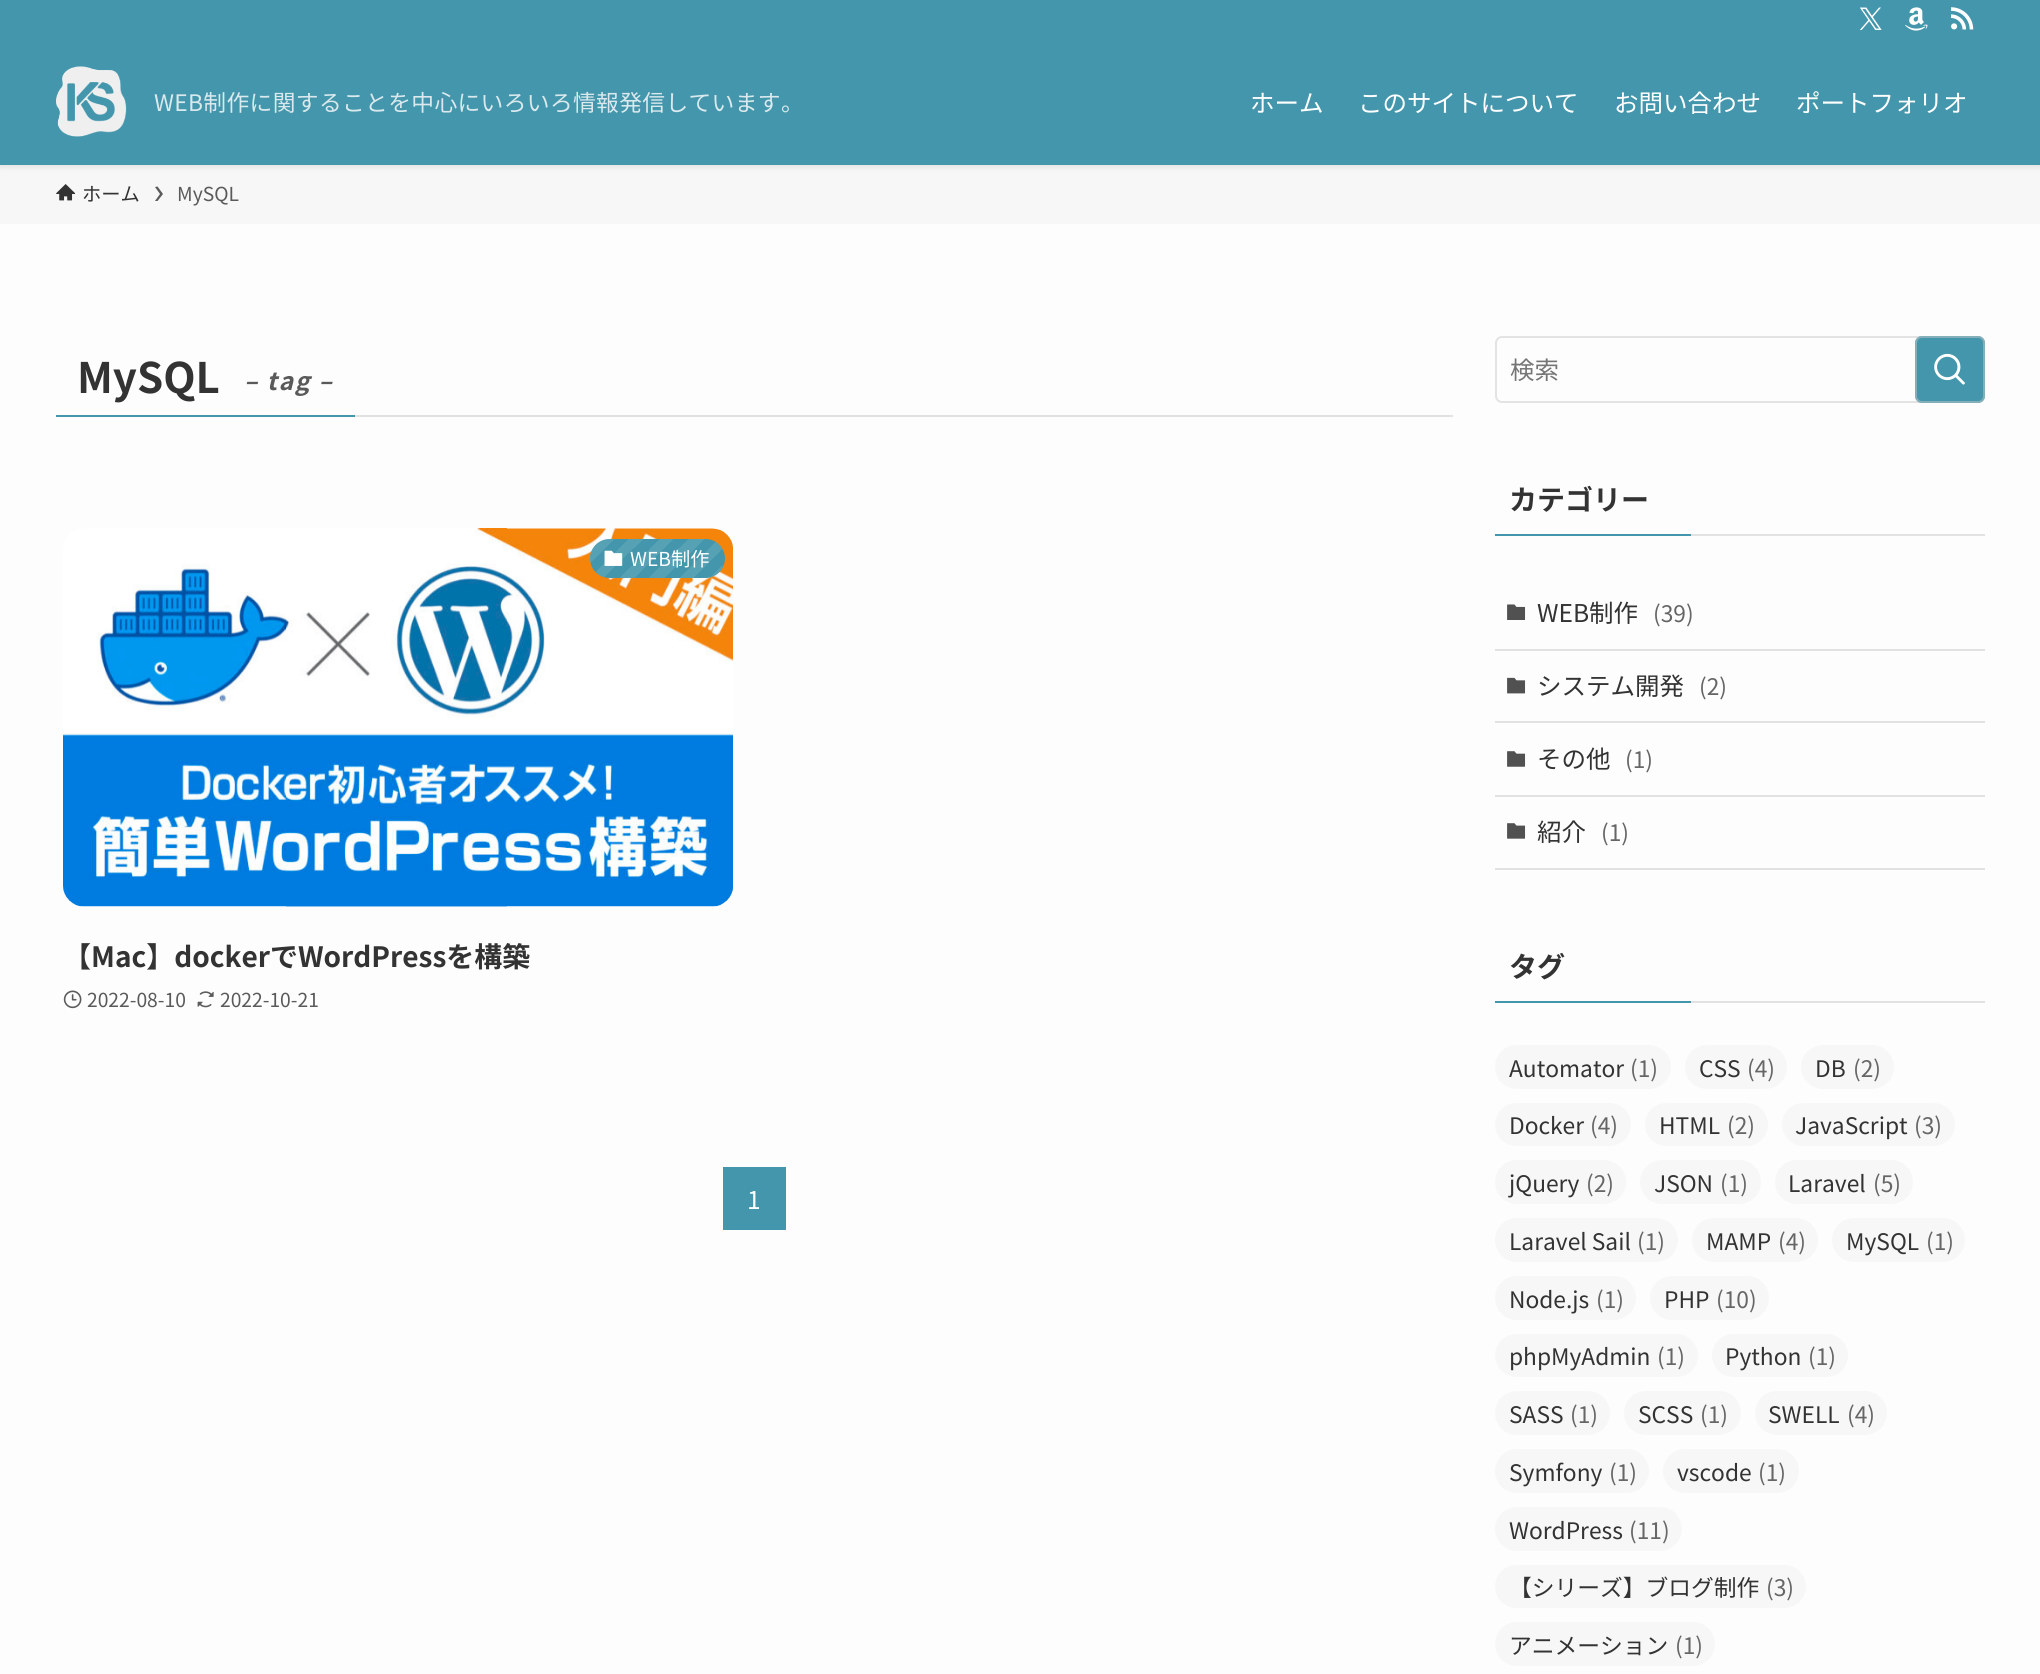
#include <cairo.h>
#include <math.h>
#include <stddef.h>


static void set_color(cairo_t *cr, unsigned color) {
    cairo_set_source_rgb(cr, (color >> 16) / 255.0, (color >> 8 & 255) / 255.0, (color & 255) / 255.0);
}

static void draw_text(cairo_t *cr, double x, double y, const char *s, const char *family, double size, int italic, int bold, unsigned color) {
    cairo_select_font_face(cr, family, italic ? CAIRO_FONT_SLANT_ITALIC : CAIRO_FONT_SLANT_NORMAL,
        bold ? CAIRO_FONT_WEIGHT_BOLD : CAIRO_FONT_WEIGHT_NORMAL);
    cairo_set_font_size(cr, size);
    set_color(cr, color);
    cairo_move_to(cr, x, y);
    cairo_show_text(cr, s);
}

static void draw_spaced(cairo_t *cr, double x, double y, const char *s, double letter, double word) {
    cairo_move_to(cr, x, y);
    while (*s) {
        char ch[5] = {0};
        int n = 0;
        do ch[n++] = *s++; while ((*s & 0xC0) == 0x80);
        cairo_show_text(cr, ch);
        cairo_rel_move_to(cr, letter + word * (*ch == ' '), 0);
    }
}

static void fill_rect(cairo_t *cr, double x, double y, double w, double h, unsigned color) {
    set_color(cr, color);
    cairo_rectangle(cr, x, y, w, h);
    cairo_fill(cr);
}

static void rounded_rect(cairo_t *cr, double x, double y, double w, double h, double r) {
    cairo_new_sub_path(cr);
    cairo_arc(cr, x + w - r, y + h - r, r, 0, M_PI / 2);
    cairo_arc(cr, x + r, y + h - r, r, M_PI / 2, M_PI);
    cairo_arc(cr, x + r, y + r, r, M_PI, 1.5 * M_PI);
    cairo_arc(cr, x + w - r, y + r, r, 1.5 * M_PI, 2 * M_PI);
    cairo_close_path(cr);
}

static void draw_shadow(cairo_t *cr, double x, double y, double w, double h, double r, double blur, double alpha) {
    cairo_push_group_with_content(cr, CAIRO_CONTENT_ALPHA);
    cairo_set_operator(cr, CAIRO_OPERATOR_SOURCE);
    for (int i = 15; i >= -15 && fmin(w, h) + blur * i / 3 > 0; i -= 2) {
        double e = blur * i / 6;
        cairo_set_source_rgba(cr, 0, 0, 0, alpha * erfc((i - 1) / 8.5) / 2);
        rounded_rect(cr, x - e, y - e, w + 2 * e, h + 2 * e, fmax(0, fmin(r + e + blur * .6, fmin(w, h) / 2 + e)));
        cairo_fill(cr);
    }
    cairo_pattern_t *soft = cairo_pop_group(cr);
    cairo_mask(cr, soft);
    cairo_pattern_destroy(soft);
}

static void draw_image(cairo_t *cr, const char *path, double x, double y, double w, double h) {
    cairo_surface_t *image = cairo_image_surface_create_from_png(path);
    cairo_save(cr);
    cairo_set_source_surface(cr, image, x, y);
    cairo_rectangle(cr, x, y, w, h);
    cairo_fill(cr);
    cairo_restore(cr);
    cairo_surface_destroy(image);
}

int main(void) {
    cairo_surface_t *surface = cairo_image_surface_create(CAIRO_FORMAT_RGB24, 2040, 1674);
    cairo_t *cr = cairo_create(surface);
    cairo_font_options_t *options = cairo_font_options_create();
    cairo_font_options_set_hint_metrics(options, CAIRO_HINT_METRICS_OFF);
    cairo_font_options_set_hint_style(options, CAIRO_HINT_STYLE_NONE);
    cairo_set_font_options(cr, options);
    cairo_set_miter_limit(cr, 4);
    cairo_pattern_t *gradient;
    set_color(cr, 0xFDFDFD);
    cairo_paint(cr);
    fill_rect(cr, 0, 165, 2040, 59, 0xF7F7F7);
    set_color(cr, 0x000000);
    draw_shadow(cr, 0, 2, 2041, 164, 0, 3.5, 0.12);
    fill_rect(cr, 0, 0, 2040, 165, 0x4396AB);
    draw_image(cr, "assets/img1.png", 1859, 7, 23, 23);
    draw_image(cr, "assets/img2.png", 1905, 7, 23, 24);
    draw_image(cr, "assets/img3.png", 1951, 7, 23, 23);
    draw_image(cr, "assets/img4.png", 56, 66, 71, 71);
    cairo_select_font_face(cr, "Noto Sans JP", CAIRO_FONT_SLANT_NORMAL, CAIRO_FONT_WEIGHT_NORMAL);
    cairo_set_font_size(cr, 22.75);
    set_color(cr, 0xD9E9ED);
    draw_spaced(cr, 154, 111, "WEB制作に関することを中心にいろいろ情報発信しています。", 0.35, 0);
    draw_text(cr, 1250, 112, "ホーム", "Noto Sans JP", 24.5, 0, 0, 0xFFFFFF);
    draw_text(cr, 1358, 112, "このサイトについて", "Noto Sans JP", 24.5, 0, 0, 0xFFFFFF);
    draw_text(cr, 1614, 112, "お問い合わせ", "Noto Sans JP", 24.5, 0, 0, 0xFFFFFF);
    draw_text(cr, 1796, 112, "ポートフォリオ", "Noto Sans JP", 24.5, 0, 0, 0xFFFFFF);
    draw_image(cr, "assets/img5.png", 56, 184, 20, 17);
    draw_text(cr, 82, 201, "ホーム", "Noto Sans JP", 19.25, 0, 0, 0x333333);
    set_color(cr, 0x5A5A5A);
    cairo_new_path(cr);
    cairo_move_to(cr, 157.5, 186.5);
    cairo_line_to(cr, 155, 187);
    cairo_line_to(cr, 160, 194);
    cairo_line_to(cr, 155, 201);
    cairo_line_to(cr, 157.5, 201);
    cairo_line_to(cr, 163, 194);
    cairo_close_path(cr);
    cairo_fill(cr);
    draw_text(cr, 177, 201, "MySQL", "Noto Sans JP", 19.25, 0, 0, 0x5A5A5A);
    fill_rect(cr, 355, 415, 1098, 2, 0xE2E2E2);
    fill_rect(cr, 56, 415, 299, 2, 0x4396AB);
    draw_text(cr, 77, 393, "MySQL", "Noto Sans JP", 42, 0, 1, 0x333333);
    cairo_select_font_face(cr, "Noto Sans JP", CAIRO_FONT_SLANT_ITALIC, CAIRO_FONT_WEIGHT_BOLD);
    cairo_set_font_size(cr, 24.5);
    set_color(cr, 0x5A5A5A);
    draw_spaced(cr, 244, 390, "– tag –", 1.75, 0);
    draw_image(cr, "assets/img6.png", 63, 528, 670, 379);
    set_color(cr, 0x4396AB);
    rounded_rect(cr, 590, 539, 135, 39, 19.5);
    cairo_fill(cr);
    gradient = cairo_pattern_create_linear(700, 602, 611, 512);
    cairo_pattern_add_color_stop_rgba(gradient, 0, 1, 1, 1, 0.1);
    cairo_pattern_add_color_stop_rgba(gradient, 0.08, 1, 1, 1, 0.1);
    cairo_pattern_add_color_stop_rgba(gradient, 0.08, 1, 1, 1, 0);
    cairo_pattern_add_color_stop_rgba(gradient, 0.17, 1, 1, 1, 0);
    cairo_pattern_add_color_stop_rgba(gradient, 0.17, 1, 1, 1, 0.1);
    cairo_pattern_add_color_stop_rgba(gradient, 0.25, 1, 1, 1, 0.1);
    cairo_pattern_add_color_stop_rgba(gradient, 0.25, 1, 1, 1, 0);
    cairo_pattern_add_color_stop_rgba(gradient, 0.33, 1, 1, 1, 0);
    cairo_pattern_add_color_stop_rgba(gradient, 0.33, 1, 1, 1, 0.1);
    cairo_pattern_add_color_stop_rgba(gradient, 0.42, 1, 1, 1, 0.1);
    cairo_pattern_add_color_stop_rgba(gradient, 0.42, 1, 1, 1, 0);
    cairo_pattern_add_color_stop_rgba(gradient, 0.5, 1, 1, 1, 0);
    cairo_pattern_add_color_stop_rgba(gradient, 0.5, 1, 1, 1, 0.1);
    cairo_pattern_add_color_stop_rgba(gradient, 0.58, 1, 1, 1, 0.1);
    cairo_pattern_add_color_stop_rgba(gradient, 0.58, 1, 1, 1, 0);
    cairo_pattern_add_color_stop_rgba(gradient, 0.67, 1, 1, 1, 0);
    cairo_pattern_add_color_stop_rgba(gradient, 0.67, 1, 1, 1, 0.1);
    cairo_pattern_add_color_stop_rgba(gradient, 0.75, 1, 1, 1, 0.1);
    cairo_pattern_add_color_stop_rgba(gradient, 0.75, 1, 1, 1, 0);
    cairo_pattern_add_color_stop_rgba(gradient, 0.83, 1, 1, 1, 0);
    cairo_pattern_add_color_stop_rgba(gradient, 0.83, 1, 1, 1, 0.1);
    cairo_pattern_add_color_stop_rgba(gradient, 0.92, 1, 1, 1, 0.1);
    cairo_pattern_add_color_stop_rgba(gradient, 0.92, 1, 1, 1, 0);
    cairo_pattern_add_color_stop_rgba(gradient, 1, 0, 0, 0, 0);
    cairo_set_source(cr, gradient);
    cairo_pattern_destroy(gradient);
    rounded_rect(cr, 590, 539, 135, 39, 19.5);
    cairo_fill(cr);
    draw_image(cr, "assets/img7.png", 604, 550, 19, 16);
    draw_text(cr, 630, 566, "WEB制作", "Noto Sans JP", 19.25, 0, 0, 0xFFFFFF);
    draw_text(cr, 63, 967, "【Mac】dockerでWordPressを構築", "Noto Sans JP", 28, 0, 1, 0x333333);
    draw_image(cr, "assets/img8.png", 63, 990, 19, 19);
    draw_text(cr, 87, 1007, "2022-08-10", "Noto Sans JP", 19.25, 0, 0, 0x5A5A5A);
    draw_image(cr, "assets/img9.png", 197, 991, 17, 17);
    draw_text(cr, 220, 1007, "2022-10-21", "Noto Sans JP", 19.25, 0, 0, 0x5A5A5A);
    fill_rect(cr, 723, 1167, 63, 63, 0x4396AB);
    draw_text(cr, 747, 1209, "1", "Noto Sans JP", 24.5, 0, 0, 0xFFFFFF);
    rounded_rect(cr, 1496, 337, 488, 65, 6);
    set_color(cr, 0xE3E3E3);
    cairo_stroke(cr);
    draw_text(cr, 1510, 379, "検索", "Noto Sans JP", 24.5, 0, 0, 0x757575);
    set_color(cr, 0x4396AB);
    rounded_rect(cr, 1915, 336, 70, 67, 7);
    cairo_fill(cr);
    rounded_rect(cr, 1916, 337, 68, 65, 6);
    cairo_set_source_rgba(cr, 0.78, 0.78, 0.78, 0.5);
    cairo_stroke(cr);
    draw_image(cr, "assets/img10.png", 1934, 353, 31, 32);
    draw_text(cr, 1509, 510, "カテゴリー", "Noto Sans JP", 28, 0, 1, 0x333333);
    fill_rect(cr, 1495, 534, 196, 2, 0x4396AB);
    fill_rect(cr, 1691, 534, 294, 2, 0xE2E2E2);
    fill_rect(cr, 1495, 649, 490, 2, 0xE2E2E2);
    draw_image(cr, "assets/img11.png", 1507, 604, 19, 16);
    draw_text(cr, 1537, 622, "WEB制作", "Noto Sans JP", 24.5, 0, 0, 0x333333);
    draw_text(cr, 1653, 622, "(39)", "Noto Sans JP", 22.75, 0, 0, 0x666666);
    fill_rect(cr, 1495, 721, 490, 2, 0xE2E2E2);
    draw_image(cr, "assets/img12.png", 1507, 677, 19, 17);
    draw_text(cr, 1537, 695, "システム開発", "Noto Sans JP", 24.5, 0, 0, 0x333333);
    draw_text(cr, 1699, 695, "(2)", "Noto Sans JP", 22.75, 0, 0, 0x666666);
    fill_rect(cr, 1495, 795, 490, 2, 0xE2E2E2);
    draw_image(cr, "assets/img13.png", 1507, 751, 19, 16);
    draw_text(cr, 1537, 768, "その他", "Noto Sans JP", 24.5, 0, 0, 0x333333);
    draw_text(cr, 1625, 768, "(1)", "Noto Sans JP", 22.75, 0, 0, 0x666666);
    fill_rect(cr, 1495, 868, 490, 2, 0xE2E2E2);
    draw_image(cr, "assets/img14.png", 1507, 823, 19, 16);
    draw_text(cr, 1537, 841, "紹介", "Noto Sans JP", 24.5, 0, 0, 0x333333);
    draw_text(cr, 1601, 841, "(1)", "Noto Sans JP", 22.75, 0, 0, 0x666666);
    draw_text(cr, 1509, 977, "タグ", "Noto Sans JP", 28, 0, 1, 0x333333);
    fill_rect(cr, 1495, 1001, 196, 2, 0x4396AB);
    fill_rect(cr, 1691, 1001, 294, 2, 0xE2E2E2);
    set_color(cr, 0xF7F7F7);
    rounded_rect(cr, 1495, 1045, 176, 44, 22);
    cairo_fill(cr);
    draw_text(cr, 1509, 1077, "Automator", "Noto Sans JP", 22.75, 0, 0, 0x333333);
    draw_text(cr, 1630, 1077, "(1)", "Noto Sans JP", 22.75, 0, 0, 0x666666);
    set_color(cr, 0xF7F7F7);
    rounded_rect(cr, 1685, 1045, 102, 44, 22);
    cairo_fill(cr);
    draw_text(cr, 1699, 1077, "CSS", "Noto Sans JP", 22.75, 0, 0, 0x333333);
    draw_text(cr, 1747, 1077, "(4)", "Noto Sans JP", 22.75, 0, 0, 0x666666);
    set_color(cr, 0xF7F7F7);
    rounded_rect(cr, 1801, 1045, 93, 44, 22);
    cairo_fill(cr);
    draw_text(cr, 1815, 1077, "DB", "Noto Sans JP", 22.75, 0, 0, 0x333333);
    draw_text(cr, 1853, 1077, "(2)", "Noto Sans JP", 22.75, 0, 0, 0x666666);
    set_color(cr, 0xF7F7F7);
    rounded_rect(cr, 1495, 1103, 136, 43, 21.5);
    cairo_fill(cr);
    draw_text(cr, 1509, 1134, "Docker", "Noto Sans JP", 22.75, 0, 0, 0x333333);
    draw_text(cr, 1590, 1134, "(4)", "Noto Sans JP", 22.75, 0, 0, 0x666666);
    set_color(cr, 0xF7F7F7);
    rounded_rect(cr, 1645, 1103, 123, 43, 21.5);
    cairo_fill(cr);
    draw_text(cr, 1659, 1134, "HTML", "Noto Sans JP", 22.75, 0, 0, 0x333333);
    draw_text(cr, 1727, 1134, "(2)", "Noto Sans JP", 22.75, 0, 0, 0x666666);
    set_color(cr, 0xF7F7F7);
    rounded_rect(cr, 1782, 1103, 173, 43, 21.5);
    cairo_fill(cr);
    draw_text(cr, 1795, 1134, "JavaScript", "Noto Sans JP", 22.75, 0, 0, 0x333333);
    draw_text(cr, 1914, 1134, "(3)", "Noto Sans JP", 22.75, 0, 0, 0x666666);
    set_color(cr, 0xF7F7F7);
    rounded_rect(cr, 1495, 1160, 131, 44, 22);
    cairo_fill(cr);
    draw_text(cr, 1509, 1192, "jQuery", "Noto Sans JP", 22.75, 0, 0, 0x333333);
    draw_text(cr, 1586, 1192, "(2)", "Noto Sans JP", 22.75, 0, 0, 0x666666);
    set_color(cr, 0xF7F7F7);
    rounded_rect(cr, 1640, 1160, 121, 44, 22);
    cairo_fill(cr);
    draw_text(cr, 1654, 1192, "JSON", "Noto Sans JP", 22.75, 0, 0, 0x333333);
    draw_text(cr, 1720, 1192, "(1)", "Noto Sans JP", 22.75, 0, 0, 0x666666);
    set_color(cr, 0xF7F7F7);
    rounded_rect(cr, 1775, 1160, 138, 44, 22);
    cairo_fill(cr);
    draw_text(cr, 1788, 1192, "Laravel", "Noto Sans JP", 22.75, 0, 0, 0x333333);
    draw_text(cr, 1873, 1192, "(5)", "Noto Sans JP", 22.75, 0, 0, 0x666666);
    set_color(cr, 0xF7F7F7);
    rounded_rect(cr, 1495, 1218, 183, 44, 22);
    cairo_fill(cr);
    draw_text(cr, 1509, 1250, "Laravel Sail", "Noto Sans JP", 22.75, 0, 0, 0x333333);
    draw_text(cr, 1637, 1250, "(1)", "Noto Sans JP", 22.75, 0, 0, 0x666666);
    set_color(cr, 0xF7F7F7);
    rounded_rect(cr, 1692, 1218, 126, 44, 22);
    cairo_fill(cr);
    draw_text(cr, 1706, 1250, "MAMP", "Noto Sans JP", 22.75, 0, 0, 0x333333);
    draw_text(cr, 1778, 1250, "(4)", "Noto Sans JP", 22.75, 0, 0, 0x666666);
    set_color(cr, 0xF7F7F7);
    rounded_rect(cr, 1832, 1218, 133, 44, 22);
    cairo_fill(cr);
    draw_text(cr, 1846, 1250, "MySQL", "Noto Sans JP", 22.75, 0, 0, 0x333333);
    draw_text(cr, 1926, 1250, "(1)", "Noto Sans JP", 22.75, 0, 0, 0x666666);
    set_color(cr, 0xF7F7F7);
    rounded_rect(cr, 1495, 1276, 141, 44, 22);
    cairo_fill(cr);
    draw_text(cr, 1509, 1308, "Node.js", "Noto Sans JP", 22.75, 0, 0, 0x333333);
    draw_text(cr, 1596, 1308, "(1)", "Noto Sans JP", 22.75, 0, 0, 0x666666);
    set_color(cr, 0xF7F7F7);
    rounded_rect(cr, 1650, 1276, 119, 44, 22);
    cairo_fill(cr);
    draw_text(cr, 1664, 1308, "PHP", "Noto Sans JP", 22.75, 0, 0, 0x333333);
    draw_text(cr, 1716, 1308, "(10)", "Noto Sans JP", 22.75, 0, 0, 0x666666);
    set_color(cr, 0xF7F7F7);
    rounded_rect(cr, 1495, 1334, 203, 43, 21.5);
    cairo_fill(cr);
    draw_text(cr, 1509, 1365, "phpMyAdmin", "Noto Sans JP", 22.75, 0, 0, 0x333333);
    draw_text(cr, 1657, 1365, "(1)", "Noto Sans JP", 22.75, 0, 0, 0x666666);
    set_color(cr, 0xF7F7F7);
    rounded_rect(cr, 1712, 1334, 136, 43, 21.5);
    cairo_fill(cr);
    draw_text(cr, 1725, 1365, "Python", "Noto Sans JP", 22.75, 0, 0, 0x333333);
    draw_text(cr, 1808, 1365, "(1)", "Noto Sans JP", 22.75, 0, 0, 0x666666);
    set_color(cr, 0xF7F7F7);
    rounded_rect(cr, 1495, 1391, 115, 44, 22);
    cairo_fill(cr);
    draw_text(cr, 1509, 1423, "SASS", "Noto Sans JP", 22.75, 0, 0, 0x333333);
    draw_text(cr, 1570, 1423, "(1)", "Noto Sans JP", 22.75, 0, 0, 0x666666);
    set_color(cr, 0xF7F7F7);
    rounded_rect(cr, 1624, 1391, 117, 44, 22);
    cairo_fill(cr);
    draw_text(cr, 1638, 1423, "SCSS", "Noto Sans JP", 22.75, 0, 0, 0x333333);
    draw_text(cr, 1700, 1423, "(1)", "Noto Sans JP", 22.75, 0, 0, 0x666666);
    set_color(cr, 0xF7F7F7);
    rounded_rect(cr, 1755, 1391, 132, 44, 22);
    cairo_fill(cr);
    draw_text(cr, 1768, 1423, "SWELL", "Noto Sans JP", 22.75, 0, 0, 0x333333);
    draw_text(cr, 1847, 1423, "(4)", "Noto Sans JP", 22.75, 0, 0, 0x666666);
    set_color(cr, 0xF7F7F7);
    rounded_rect(cr, 1495, 1449, 154, 44, 22);
    cairo_fill(cr);
    draw_text(cr, 1509, 1481, "Symfony", "Noto Sans JP", 22.75, 0, 0, 0x333333);
    draw_text(cr, 1609, 1481, "(1)", "Noto Sans JP", 22.75, 0, 0, 0x666666);
    set_color(cr, 0xF7F7F7);
    rounded_rect(cr, 1663, 1449, 136, 44, 22);
    cairo_fill(cr);
    draw_text(cr, 1677, 1481, "vscode", "Noto Sans JP", 22.75, 0, 0, 0x333333);
    draw_text(cr, 1758, 1481, "(1)", "Noto Sans JP", 22.75, 0, 0, 0x666666);
    set_color(cr, 0xF7F7F7);
    rounded_rect(cr, 1495, 1507, 187, 44, 22);
    cairo_fill(cr);
    draw_text(cr, 1509, 1539, "WordPress", "Noto Sans JP", 22.75, 0, 0, 0x333333);
    draw_text(cr, 1629, 1539, "(11)", "Noto Sans JP", 22.75, 0, 0, 0x666666);
    set_color(cr, 0xF7F7F7);
    rounded_rect(cr, 1495, 1565, 311, 43, 21.5);
    cairo_fill(cr);
    draw_text(cr, 1509, 1596, "【シリーズ】ブログ制作", "Noto Sans JP", 22.75, 0, 0, 0x333333);
    draw_text(cr, 1766, 1596, "(3)", "Noto Sans JP", 22.75, 0, 0, 0x666666);
    set_color(cr, 0xF7F7F7);
    rounded_rect(cr, 1495, 1622, 220, 44, 22);
    cairo_fill(cr);
    draw_text(cr, 1509, 1654, "アニメーション", "Noto Sans JP", 22.75, 0, 0, 0x333333);
    draw_text(cr, 1675, 1654, "(1)", "Noto Sans JP", 22.75, 0, 0, 0x666666);
    cairo_surface_write_to_png(surface, "output.png");
    cairo_font_options_destroy(options);
    cairo_destroy(cr);
    cairo_surface_destroy(surface);
    return 0;
}
